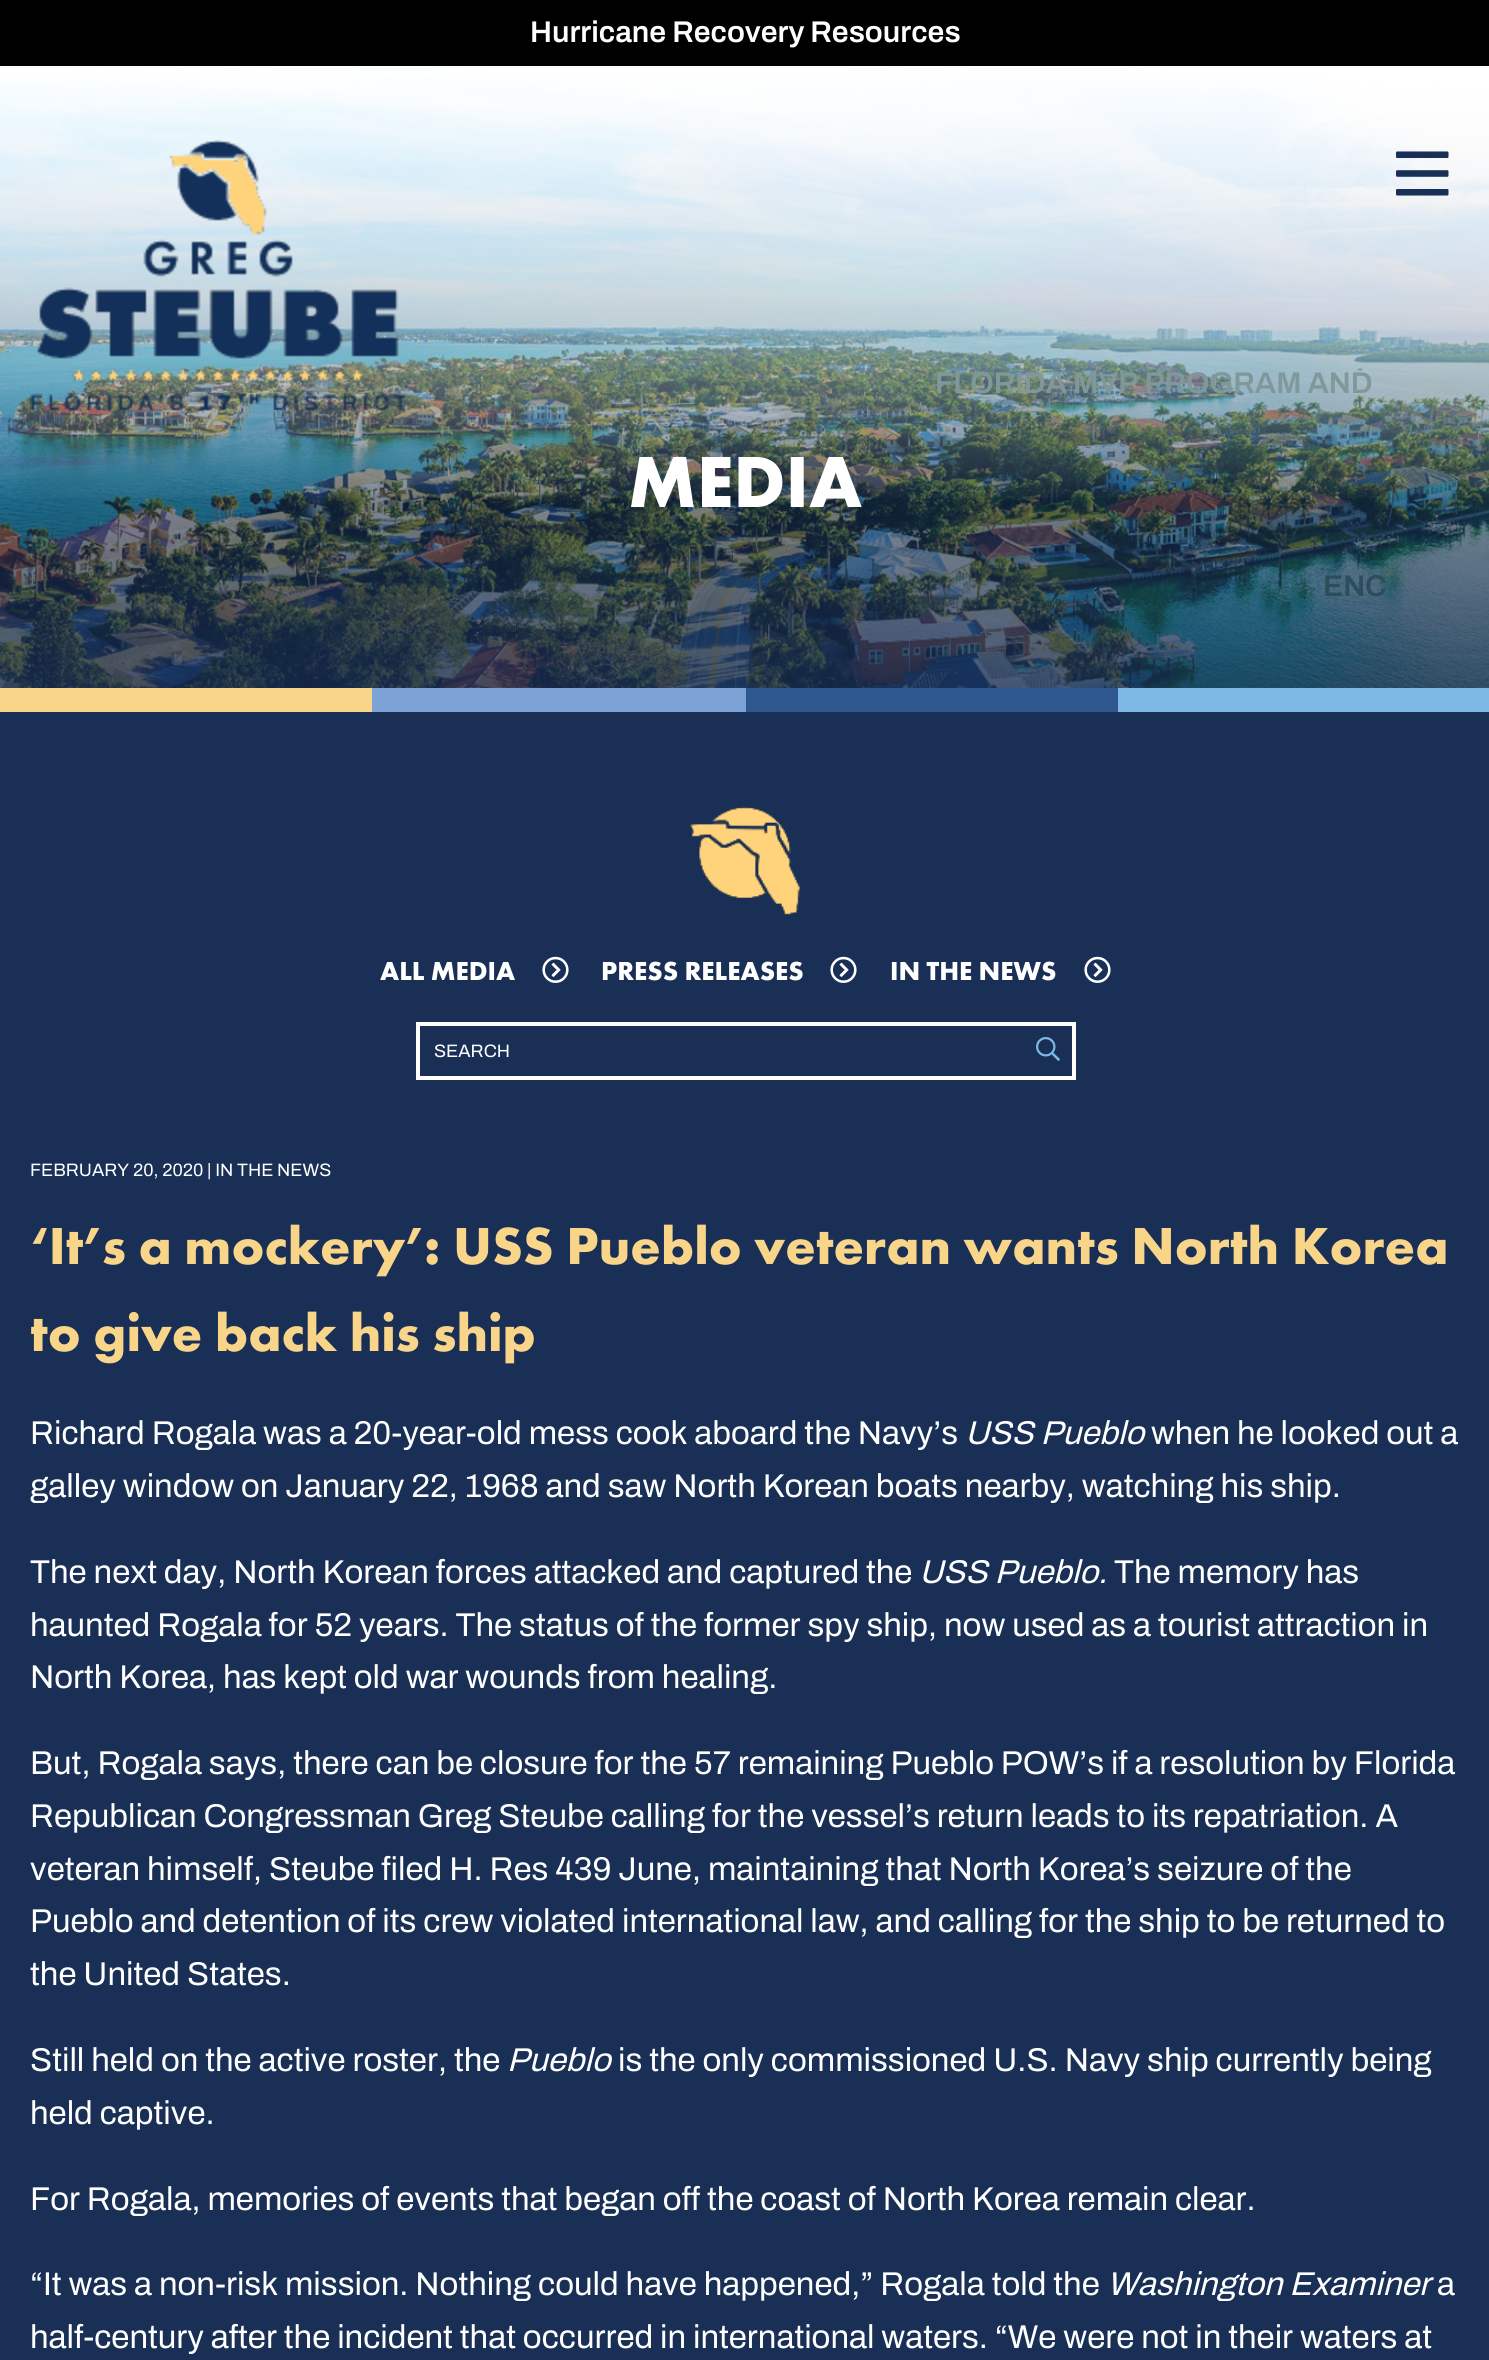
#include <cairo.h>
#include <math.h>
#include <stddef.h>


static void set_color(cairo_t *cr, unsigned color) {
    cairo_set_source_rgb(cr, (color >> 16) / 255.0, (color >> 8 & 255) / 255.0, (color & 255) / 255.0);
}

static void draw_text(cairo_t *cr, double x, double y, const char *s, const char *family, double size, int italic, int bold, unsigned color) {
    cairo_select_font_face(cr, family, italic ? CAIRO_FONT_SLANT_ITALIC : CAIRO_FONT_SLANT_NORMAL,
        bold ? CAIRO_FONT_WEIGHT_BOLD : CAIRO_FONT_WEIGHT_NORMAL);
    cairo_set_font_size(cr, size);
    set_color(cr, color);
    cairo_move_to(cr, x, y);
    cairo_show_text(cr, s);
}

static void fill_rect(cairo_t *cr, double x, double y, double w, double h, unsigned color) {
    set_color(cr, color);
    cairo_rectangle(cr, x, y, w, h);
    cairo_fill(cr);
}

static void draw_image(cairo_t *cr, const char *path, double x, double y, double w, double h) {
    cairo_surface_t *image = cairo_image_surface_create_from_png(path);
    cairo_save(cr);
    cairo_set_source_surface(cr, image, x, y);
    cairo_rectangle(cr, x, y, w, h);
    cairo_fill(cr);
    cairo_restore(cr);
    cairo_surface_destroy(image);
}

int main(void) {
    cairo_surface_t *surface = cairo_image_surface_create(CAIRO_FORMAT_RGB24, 1489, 2360);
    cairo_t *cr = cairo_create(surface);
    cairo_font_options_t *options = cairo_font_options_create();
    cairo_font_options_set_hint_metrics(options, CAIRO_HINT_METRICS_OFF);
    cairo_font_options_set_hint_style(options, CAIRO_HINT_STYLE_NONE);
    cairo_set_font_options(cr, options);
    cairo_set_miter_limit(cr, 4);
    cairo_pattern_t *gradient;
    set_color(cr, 0x192F56);
    cairo_paint(cr);
    fill_rect(cr, 0, 0, 1489, 66, 0x000000);
    draw_text(cr, 530, 42, "Hurricane Recovery Resources", "Archivo SemiBold", 30, 0, 0, 0xFFFFFF);
    draw_image(cr, "assets/img3.png", 0, 69, 1489, 619);
    draw_text(cr, 628, 507, "MEDIA", "Futura PT", 75, 0, 1, 0xFFFFFF);
    gradient = cairo_pattern_create_linear(745, 66, 745, 508);
    cairo_pattern_add_color_stop_rgba(gradient, 0, 1, 1, 1, 1);
    cairo_pattern_add_color_stop_rgba(gradient, 1, 1, 1, 1, 0);
    cairo_set_source(cr, gradient);
    cairo_pattern_destroy(gradient);
    cairo_rectangle(cr, 0, 66, 1489, 432);
    cairo_fill(cr);
    draw_image(cr, "assets/img1.png", 30, 140, 378, 272);
    draw_image(cr, "assets/img2.png", 1396, 151, 53, 45);
    draw_text(cr, 935, 393, "FLORIDA MVP PROGRAM AND", "Archivo SemiBold", 30, 0, 0, 0x80989A);
    draw_text(cr, 1323, 596, "ENC", "Archivo SemiBold", 30, 0, 0, 0x2C4D5C);
    fill_rect(cr, 0, 688, 372, 24, 0xF8D589);
    fill_rect(cr, 372, 688, 374, 24, 0x7DA2D6);
    fill_rect(cr, 746, 688, 372, 24, 0x2E578F);
    fill_rect(cr, 1118, 688, 371, 24, 0x7DB8E4);
    draw_image(cr, "assets/img4.png", 690, 806, 110, 109);
    draw_text(cr, 380, 980, "ALL MEDIA", "Futura PT", 27, 0, 1, 0xFFFFFF);
    draw_image(cr, "assets/img5.png", 542, 956, 27, 27);
    draw_text(cr, 601, 980, "PRESS RELEASES", "Futura PT", 27, 0, 1, 0xFFFFFF);
    draw_image(cr, "assets/img5.png", 830, 956, 27, 27);
    draw_text(cr, 890, 980, "IN THE NEWS", "Futura PT", 27, 0, 1, 0xFFFFFF);
    draw_image(cr, "assets/img5.png", 1084, 956, 27, 27);
    cairo_rectangle(cr, 418, 1024, 656, 54);
    cairo_set_line_width(cr, 4);
    cairo_stroke(cr);
    draw_text(cr, 434, 1057, "SEARCH", "Archivo", 18, 0, 0, 0xFFFFFF);
    draw_image(cr, "assets/img6.png", 1036, 1037, 24, 24);
    draw_text(cr, 30, 1176, "FEBRUARY 20, 2020 | IN THE NEWS", "Archivo", 18, 0, 0, 0xFFFFFF);
    draw_text(cr, 30, 1264, "‘It’s a mockery’: USS Pueblo veteran wants North Korea", "Futura PT", 54, 0, 1, 0xF8D589);
    draw_text(cr, 30, 1351, "to give back his ship", "Futura PT", 54, 0, 1, 0xF8D589);
    draw_text(cr, 30, 1444, "Richard Rogala was a 20-year-old mess cook aboard the Navy’s", "Archivo", 33, 0, 0, 0xFFFFFF);
    draw_text(cr, 965, 1444, "USS Pueblo", "Archivo", 33, 1, 0, 0xFFFFFF);
    draw_text(cr, 1151, 1444, "when he looked out a", "Archivo", 33, 0, 0, 0xFFFFFF);
    draw_text(cr, 30, 1497, "galley window on January 22, 1968 and saw North Korean boats nearby, watching his ship.", "Archivo", 33, 0, 0, 0xFFFFFF);
    draw_text(cr, 30, 1583, "The next day, North Korean forces attacked and captured the", "Archivo", 33, 0, 0, 0xFFFFFF);
    draw_text(cr, 919, 1583, "USS Pueblo.", "Archivo", 33, 1, 0, 0xFFFFFF);
    draw_text(cr, 1114, 1583, "The memory has", "Archivo", 33, 0, 0, 0xFFFFFF);
    draw_text(cr, 30, 1636, "haunted Rogala for 52 years. The status of the former spy ship, now used as a tourist attraction in", "Archivo", 33, 0, 0, 0xFFFFFF);
    draw_text(cr, 30, 1688, "North Korea, has kept old war wounds from healing.", "Archivo", 33, 0, 0, 0xFFFFFF);
    draw_text(cr, 30, 1774, "But, Rogala says, there can be closure for the 57 remaining Pueblo POW’s if a resolution by Florida", "Archivo", 33, 0, 0, 0xFFFFFF);
    draw_text(cr, 30, 1827, "Republican Congressman Greg Steube calling for the vessel’s return leads to its repatriation. A", "Archivo", 33, 0, 0, 0xFFFFFF);
    draw_text(cr, 30, 1880, "veteran himself, Steube filed H. Res 439 June, maintaining that North Korea’s seizure of the", "Archivo", 33, 0, 0, 0xFFFFFF);
    draw_text(cr, 30, 1932, "Pueblo and detention of its crew violated international law, and calling for the ship to be returned to", "Archivo", 33, 0, 0, 0xFFFFFF);
    draw_text(cr, 30, 1985, "the United States.", "Archivo", 33, 0, 0, 0xFFFFFF);
    draw_text(cr, 30, 2071, "Still held on the active roster, the", "Archivo", 33, 0, 0, 0xFFFFFF);
    draw_text(cr, 507, 2071, "Pueblo", "Archivo", 33, 1, 0, 0xFFFFFF);
    draw_text(cr, 618, 2071, "is the only commissioned U.S. Navy ship currently being", "Archivo", 33, 0, 0, 0xFFFFFF);
    draw_text(cr, 30, 2124, "held captive.", "Archivo", 33, 0, 0, 0xFFFFFF);
    draw_text(cr, 30, 2210, "For Rogala, memories of events that began off the coast of North Korea remain clear.", "Archivo", 33, 0, 0, 0xFFFFFF);
    draw_text(cr, 30, 2295, "“It was a non-risk mission. Nothing could have happened,” Rogala told the", "Archivo", 33, 0, 0, 0xFFFFFF);
    draw_text(cr, 1107, 2295, "Washington Examiner", "Archivo", 33, 1, 0, 0xFFFFFF);
    draw_text(cr, 1437, 2295, "a", "Archivo", 33, 0, 0, 0xFFFFFF);
    draw_text(cr, 30, 2348, "half-century after the incident that occurred in international waters. “We were not in their waters at", "Archivo", 33, 0, 0, 0xFFFFFF);
    cairo_surface_write_to_png(surface, "output.png");
    cairo_font_options_destroy(options);
    cairo_destroy(cr);
    cairo_surface_destroy(surface);
    return 0;
}
